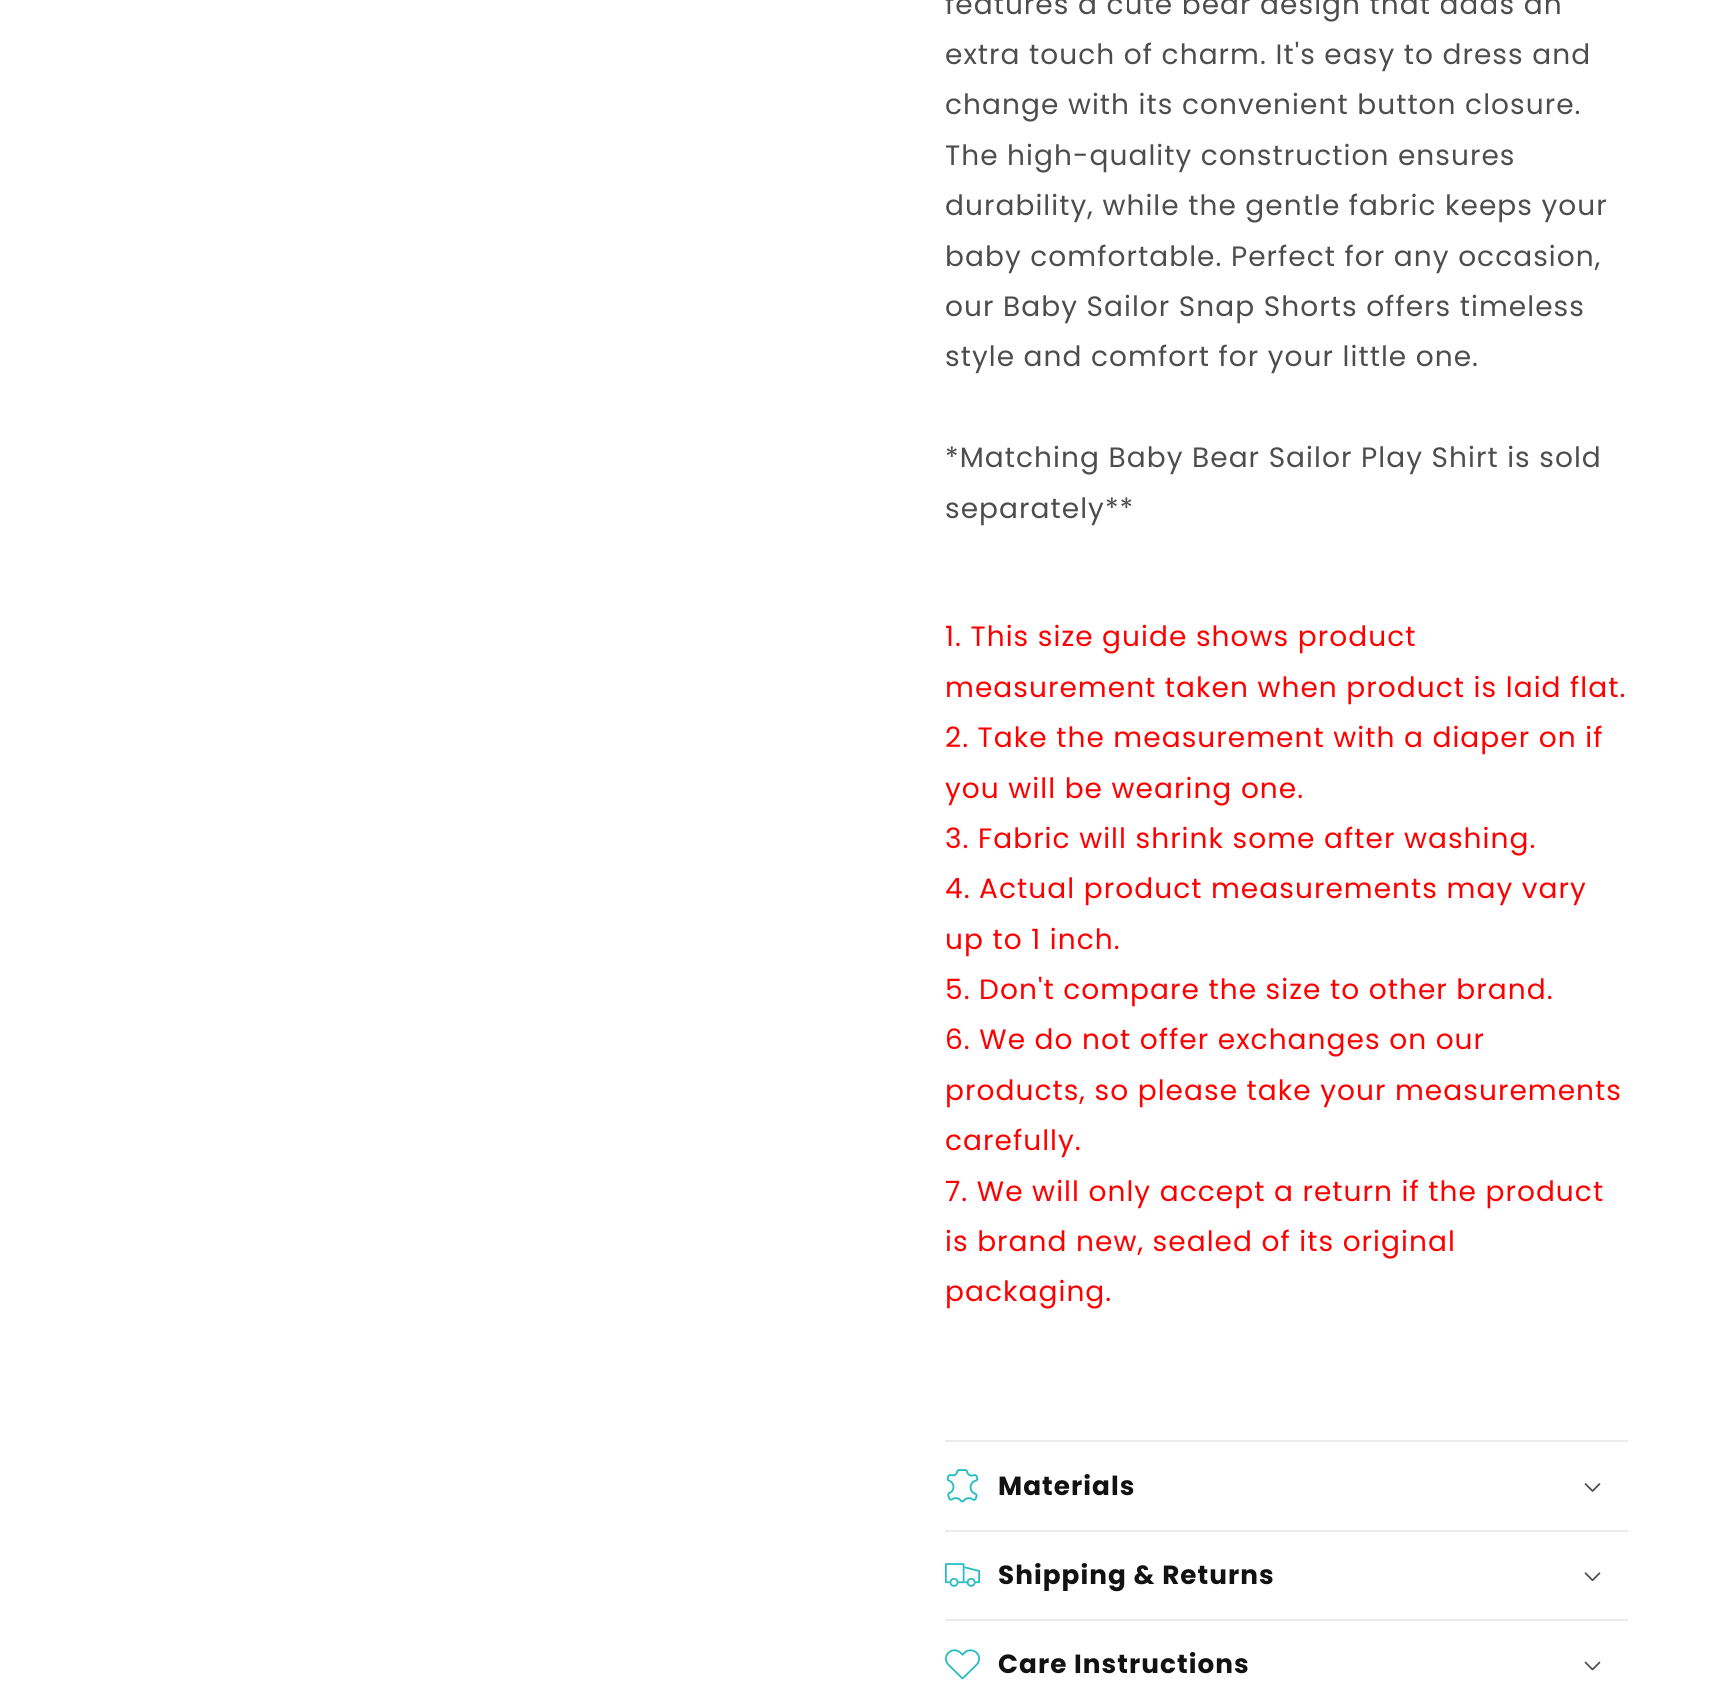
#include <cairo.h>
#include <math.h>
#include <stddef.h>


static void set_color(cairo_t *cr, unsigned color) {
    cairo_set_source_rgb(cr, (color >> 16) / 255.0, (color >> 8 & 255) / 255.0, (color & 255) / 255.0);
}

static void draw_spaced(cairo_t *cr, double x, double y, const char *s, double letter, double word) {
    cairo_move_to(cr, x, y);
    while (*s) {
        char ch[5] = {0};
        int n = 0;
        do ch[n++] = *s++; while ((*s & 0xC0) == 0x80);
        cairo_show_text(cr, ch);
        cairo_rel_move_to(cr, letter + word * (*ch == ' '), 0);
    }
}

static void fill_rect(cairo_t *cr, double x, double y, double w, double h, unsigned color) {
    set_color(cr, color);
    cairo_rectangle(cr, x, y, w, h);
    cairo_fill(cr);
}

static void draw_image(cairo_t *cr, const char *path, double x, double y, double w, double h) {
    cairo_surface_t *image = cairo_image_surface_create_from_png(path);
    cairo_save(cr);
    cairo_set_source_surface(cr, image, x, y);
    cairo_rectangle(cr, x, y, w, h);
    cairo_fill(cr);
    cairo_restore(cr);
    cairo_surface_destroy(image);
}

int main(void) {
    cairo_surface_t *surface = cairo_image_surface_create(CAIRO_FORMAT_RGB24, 1714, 1702);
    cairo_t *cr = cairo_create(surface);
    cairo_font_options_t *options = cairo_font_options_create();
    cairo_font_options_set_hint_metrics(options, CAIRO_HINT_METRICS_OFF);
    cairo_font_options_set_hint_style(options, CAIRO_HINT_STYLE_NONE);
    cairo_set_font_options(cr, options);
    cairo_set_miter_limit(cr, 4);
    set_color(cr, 0xFFFFFF);
    cairo_paint(cr);
    cairo_select_font_face(cr, "Poppins", CAIRO_FONT_SLANT_NORMAL, CAIRO_FONT_WEIGHT_NORMAL);
    cairo_set_font_size(cr, 28);
    set_color(cr, 0x4D4D4D);
    draw_spaced(cr, 945, 14, "features a cute bear design that adds an", 1.05, 0);
    draw_spaced(cr, 945, 64, "extra touch of charm. It's easy to dress and", 1.05, 0);
    draw_spaced(cr, 945, 114, "change with its convenient button closure.", 1.05, 0);
    draw_spaced(cr, 945, 165, "The high-quality construction ensures", 1.05, 0);
    draw_spaced(cr, 945, 215, "durability, while the gentle fabric keeps your", 1.05, 0);
    draw_spaced(cr, 945, 266, "baby comfortable. Perfect for any occasion,", 1.05, 0);
    draw_spaced(cr, 945, 316, "our Baby Sailor Snap Shorts offers timeless", 1.05, 0);
    draw_spaced(cr, 945, 366, "style and comfort for your little one.", 1.05, 0);
    draw_spaced(cr, 945, 467, "*Matching Baby Bear Sailor Play Shirt is sold", 1.05, 0);
    draw_spaced(cr, 945, 518, "separately**", 1.05, 0);
    set_color(cr, 0xFF0000);
    draw_spaced(cr, 945, 646, "1. This size guide shows product", 1.05, 0);
    draw_spaced(cr, 945, 697, "measurement taken when product is laid flat.", 1.05, 0);
    draw_spaced(cr, 945, 747, "2. Take the measurement with a diaper on if", 1.05, 0);
    draw_spaced(cr, 945, 798, "you will be wearing one.", 1.05, 0);
    draw_spaced(cr, 945, 848, "3. Fabric will shrink some after washing.", 1.05, 0);
    draw_spaced(cr, 945, 898, "4. Actual product measurements may vary", 1.05, 0);
    draw_spaced(cr, 945, 949, "up to 1 inch.", 1.05, 0);
    draw_spaced(cr, 945, 999, "5. Don't compare the size to other brand.", 1.05, 0);
    draw_spaced(cr, 945, 1049, "6. We do not offer exchanges on our", 1.05, 0);
    draw_spaced(cr, 945, 1100, "products, so please take your measurements", 1.05, 0);
    draw_spaced(cr, 945, 1150, "carefully.", 1.05, 0);
    draw_spaced(cr, 945, 1201, "7. We will only accept a return if the product", 1.05, 0);
    draw_spaced(cr, 945, 1251, "is brand new, sealed of its original", 1.05, 0);
    draw_spaced(cr, 945, 1301, "packaging.", 1.05, 0);
    fill_rect(cr, 945, 1440, 683, 2, 0xECECEC);
    fill_rect(cr, 945, 1530, 683, 2, 0xECECEC);
    draw_image(cr, "assets/img1.png", 946, 1469, 33, 34);
    cairo_select_font_face(cr, "Poppins", CAIRO_FONT_SLANT_NORMAL, CAIRO_FONT_WEIGHT_BOLD);
    cairo_set_font_size(cr, 26.25);
    set_color(cr, 0x121212);
    draw_spaced(cr, 998, 1495, "Materials", 1.05, 0);
    draw_image(cr, "assets/img2.png", 1584, 1483, 17, 9);
    fill_rect(cr, 945, 1619, 683, 2, 0xECECEC);
    draw_image(cr, "assets/img3.png", 945, 1563, 35, 24);
    set_color(cr, 0x121212);
    draw_spaced(cr, 998, 1584, "Shipping & Returns", 1.05, 0);
    draw_image(cr, "assets/img4.png", 1584, 1572, 17, 10);
    draw_image(cr, "assets/img5.png", 945, 1649, 35, 31);
    draw_spaced(cr, 998, 1673, "Care Instructions", 1.05, 0);
    draw_image(cr, "assets/img6.png", 1584, 1661, 17, 10);
    cairo_surface_write_to_png(surface, "output.png");
    cairo_font_options_destroy(options);
    cairo_destroy(cr);
    cairo_surface_destroy(surface);
    return 0;
}
